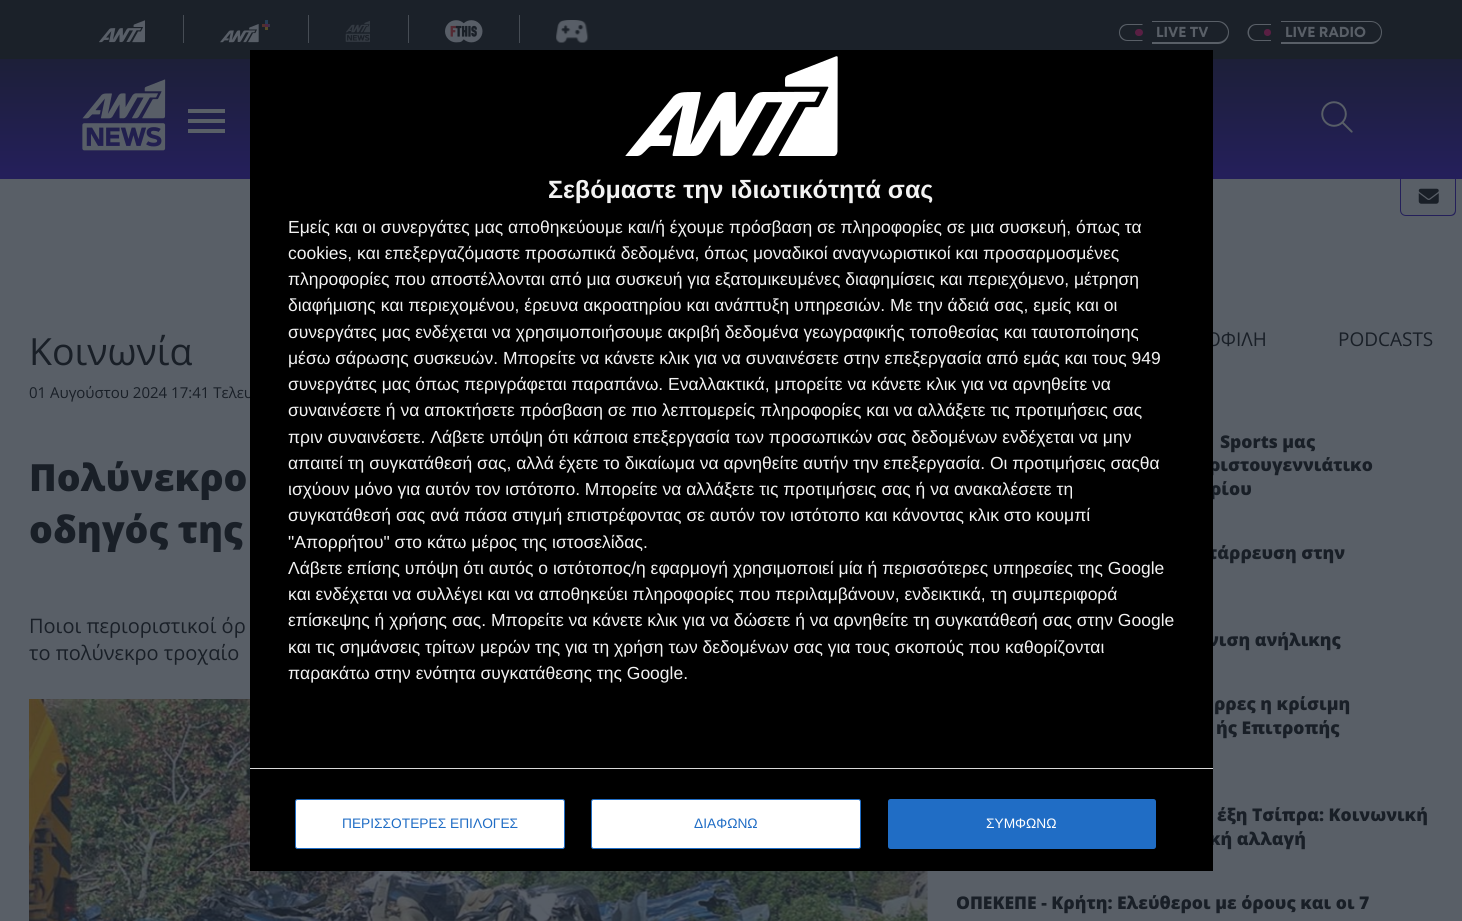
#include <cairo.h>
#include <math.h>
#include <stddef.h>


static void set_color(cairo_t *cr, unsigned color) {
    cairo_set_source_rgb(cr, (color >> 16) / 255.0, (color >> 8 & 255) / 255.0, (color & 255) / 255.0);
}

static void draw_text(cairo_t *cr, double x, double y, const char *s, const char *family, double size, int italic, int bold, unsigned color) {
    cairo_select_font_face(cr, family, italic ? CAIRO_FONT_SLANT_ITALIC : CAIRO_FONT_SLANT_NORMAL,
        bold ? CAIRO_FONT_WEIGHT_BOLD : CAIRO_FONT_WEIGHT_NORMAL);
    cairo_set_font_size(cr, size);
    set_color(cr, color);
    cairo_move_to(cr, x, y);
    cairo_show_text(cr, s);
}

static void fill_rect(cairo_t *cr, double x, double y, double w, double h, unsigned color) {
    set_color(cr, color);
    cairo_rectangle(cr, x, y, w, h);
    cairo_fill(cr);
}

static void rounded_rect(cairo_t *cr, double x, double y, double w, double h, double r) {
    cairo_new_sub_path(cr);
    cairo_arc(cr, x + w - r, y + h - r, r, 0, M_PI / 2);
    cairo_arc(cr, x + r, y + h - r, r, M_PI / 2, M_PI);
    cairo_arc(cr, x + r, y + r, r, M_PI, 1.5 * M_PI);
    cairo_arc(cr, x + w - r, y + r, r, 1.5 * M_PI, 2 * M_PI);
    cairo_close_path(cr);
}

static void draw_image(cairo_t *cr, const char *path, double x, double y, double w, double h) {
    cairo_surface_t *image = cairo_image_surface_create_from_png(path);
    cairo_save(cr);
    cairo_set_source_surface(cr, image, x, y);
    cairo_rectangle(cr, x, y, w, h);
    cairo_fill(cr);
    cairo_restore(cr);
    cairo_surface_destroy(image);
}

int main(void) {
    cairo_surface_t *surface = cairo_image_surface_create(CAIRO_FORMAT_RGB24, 1462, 921);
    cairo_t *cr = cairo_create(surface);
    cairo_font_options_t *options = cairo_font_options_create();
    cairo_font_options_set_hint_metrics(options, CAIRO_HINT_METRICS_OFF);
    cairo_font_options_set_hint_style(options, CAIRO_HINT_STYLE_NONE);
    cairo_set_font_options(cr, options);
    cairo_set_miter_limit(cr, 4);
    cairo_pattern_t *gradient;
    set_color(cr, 0x595F67);
    cairo_paint(cr);
    gradient = cairo_pattern_create_linear(731, 179, 731, 0);
    cairo_pattern_add_color_stop_rgba(gradient, 0.03, 0.141, 0.122, 0.353, 1);
    cairo_pattern_add_color_stop_rgba(gradient, 1, 0.098, 0.122, 0.153, 1);
    cairo_set_source(cr, gradient);
    cairo_pattern_destroy(gradient);
    cairo_rectangle(cr, 0, 59, 1462, 120);
    cairo_fill(cr);
    fill_rect(cr, 0, 0, 1462, 59, 0x1B2129);
    draw_image(cr, "assets/img1.png", 99, 20, 46, 23);
    fill_rect(cr, 183, 15, 1, 28, 0x464C54);
    draw_image(cr, "assets/img2.png", 220, 20, 50, 23);
    fill_rect(cr, 308, 15, 1, 28, 0x464C54);
    draw_image(cr, "assets/img3.png", 345, 20, 25, 22);
    fill_rect(cr, 408, 15, 1, 28, 0x464C54);
    draw_image(cr, "assets/img4.png", 445, 20, 38, 23);
    fill_rect(cr, 519, 15, 1, 28, 0x464C54);
    draw_image(cr, "assets/img5.png", 556, 20, 33, 23);
    set_color(cr, 0x595F67);
    cairo_set_fill_rule(cr, CAIRO_FILL_RULE_EVEN_ODD);
    cairo_new_path(cr);
    cairo_move_to(cr, 1127.5, 24);
    cairo_line_to(cr, 1142.5, 24);
    cairo_line_to(cr, 1142.5, 41);
    cairo_line_to(cr, 1127.5, 41);
    cairo_curve_to(cr, 1122.5, 41, 1119, 37.5, 1119, 32.5);
    cairo_curve_to(cr, 1119, 27.5, 1122.5, 24, 1127.5, 24);
    cairo_close_path(cr);
    cairo_move_to(cr, 1127.5, 25);
    cairo_line_to(cr, 1142.5, 25);
    cairo_line_to(cr, 1142.5, 40);
    cairo_line_to(cr, 1127.5, 40);
    cairo_curve_to(cr, 1123.5, 40, 1120, 36.5, 1120, 32.5);
    cairo_curve_to(cr, 1120, 28.5, 1123.5, 25, 1127.5, 25);
    cairo_close_path(cr);
    cairo_fill(cr);
    cairo_new_path(cr);
    cairo_move_to(cr, 1152, 21);
    cairo_line_to(cr, 1218, 21);
    cairo_curve_to(cr, 1224, 21, 1229, 26, 1229, 32);
    cairo_curve_to(cr, 1229, 39, 1224, 44, 1218, 44);
    cairo_line_to(cr, 1152, 44);
    cairo_close_path(cr);
    cairo_move_to(cr, 1152, 22);
    cairo_line_to(cr, 1218, 22);
    cairo_curve_to(cr, 1223, 22, 1228, 27, 1228, 32);
    cairo_curve_to(cr, 1228, 38, 1223, 42, 1218, 42);
    cairo_line_to(cr, 1152, 42);
    cairo_close_path(cr);
    cairo_fill(cr);
    set_color(cr, 0x591F43);
    rounded_rect(cr, 1135, 29, 8, 7, 3.5);
    cairo_fill(cr);
    draw_text(cr, 1156, 37, "LIVE TV", "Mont", 14.5, 0, 1, 0x595F67);
    cairo_new_path(cr);
    cairo_move_to(cr, 1256, 24);
    cairo_line_to(cr, 1271, 24);
    cairo_line_to(cr, 1271, 41);
    cairo_line_to(cr, 1256, 41);
    cairo_curve_to(cr, 1251.5, 41, 1247.5, 37.5, 1247.5, 32.5);
    cairo_curve_to(cr, 1247.5, 27.5, 1251.5, 24, 1256, 24);
    cairo_close_path(cr);
    cairo_move_to(cr, 1256, 25);
    cairo_line_to(cr, 1271, 25);
    cairo_line_to(cr, 1271, 40);
    cairo_line_to(cr, 1256, 40);
    cairo_curve_to(cr, 1252, 40, 1249, 36.5, 1249, 32.5);
    cairo_curve_to(cr, 1249, 28.5, 1252, 25, 1256, 25);
    cairo_close_path(cr);
    cairo_fill(cr);
    cairo_new_path(cr);
    cairo_move_to(cr, 1281, 21);
    cairo_line_to(cr, 1371, 21);
    cairo_curve_to(cr, 1377, 21, 1382, 26, 1382, 32);
    cairo_curve_to(cr, 1382, 39, 1377, 44, 1371, 44);
    cairo_line_to(cr, 1281, 44);
    cairo_close_path(cr);
    cairo_move_to(cr, 1281, 22);
    cairo_line_to(cr, 1371, 22);
    cairo_curve_to(cr, 1377, 22, 1381, 27, 1381, 32);
    cairo_curve_to(cr, 1381, 38, 1377, 42, 1371, 42);
    cairo_line_to(cr, 1281, 42);
    cairo_close_path(cr);
    cairo_fill(cr);
    set_color(cr, 0x591F43);
    cairo_arc(cr, 1267.5, 32.5, 3.5, 0, 2 * M_PI);
    cairo_fill(cr);
    draw_text(cr, 1285, 37, "LIVE RADIO", "Mont", 14.5, 0, 1, 0x595F67);
    draw_image(cr, "assets/img6.png", 82, 79, 84, 72);
    fill_rect(cr, 188, 109, 37, 4, 0x595F67);
    fill_rect(cr, 188, 119, 37, 4, 0x595F67);
    fill_rect(cr, 188, 129, 37, 4, 0x595F67);
    draw_image(cr, "assets/img7.png", 1321, 101, 32, 32);
    set_color(cr, 0x241F5A);
    cairo_new_path(cr);
    cairo_move_to(cr, 1400, 179);
    cairo_line_to(cr, 1456, 179);
    cairo_line_to(cr, 1456, 210);
    cairo_curve_to(cr, 1456, 214, 1454, 216, 1450, 216);
    cairo_line_to(cr, 1406, 216);
    cairo_curve_to(cr, 1403, 216, 1400, 214, 1400, 210);
    cairo_close_path(cr);
    cairo_move_to(cr, 1401, 179);
    cairo_line_to(cr, 1455, 179);
    cairo_line_to(cr, 1455, 210);
    cairo_curve_to(cr, 1455, 213, 1453, 215, 1450, 215);
    cairo_line_to(cr, 1406, 215);
    cairo_curve_to(cr, 1403, 215, 1401, 213, 1401, 210);
    cairo_close_path(cr);
    cairo_fill(cr);
    draw_image(cr, "assets/img8.png", 1418, 188, 21, 16);
    draw_text(cr, 29, 365, "Κοινωνία", "Open Sans", 37.5, 0, 0, 0x191F27);
    draw_text(cr, 29, 398, "01 Αυγούστου 2024 17:41 Τελευ", "Open Sans", 15, 0, 0, 0x191F27);
    draw_text(cr, 29, 491, "Πολύνεκρο", "Open Sans ExtraBold", 37.5, 0, 0, 0x191F27);
    draw_text(cr, 29, 543, "οδηγός της", "Open Sans ExtraBold", 37.5, 0, 0, 0x191F27);
    draw_text(cr, 29, 633, "Ποιοι περιοριστικοί όρ", "Open Sans", 20, 0, 0, 0x191F27);
    draw_text(cr, 29, 660, "το πολύνεκρο τροχαίο", "Open Sans", 20, 0, 0, 0x191F27);
    draw_image(cr, "assets/img9.png", 29, 699, 899, 222);
    draw_text(cr, 1206, 346, "ΟΦΙΛH", "Open Sans", 19, 0, 0, 0x191F27);
    draw_text(cr, 1338, 346, "PODCASTS", "Open Sans", 19, 0, 0, 0x191F27);
    draw_text(cr, 1220, 448, "Sports μας", "Open Sans ExtraBold", 17.5, 0, 0, 0x191F27);
    draw_text(cr, 1209, 471, "ριστουγεννιάτικο", "Open Sans ExtraBold", 17.5, 0, 0, 0x191F27);
    draw_text(cr, 1210, 495, "ρίου", "Open Sans ExtraBold", 17.5, 0, 0, 0x191F27);
    draw_text(cr, 1208, 559, "τάρρευση στην", "Open Sans ExtraBold", 17.5, 0, 0, 0x191F27);
    draw_text(cr, 1208, 646, "νιση ανήλικης", "Open Sans ExtraBold", 17.5, 0, 0, 0x191F27);
    draw_text(cr, 1214, 710, "ρρες η κρίσιμη", "Open Sans ExtraBold", 17.5, 0, 0, 0x191F27);
    draw_text(cr, 1216, 734, "ής Επιτροπής", "Open Sans ExtraBold", 17.5, 0, 0, 0x191F27);
    draw_text(cr, 1217, 821, "έξη Τσίπρα: Κοινωνική", "Open Sans ExtraBold", 17.5, 0, 0, 0x191F27);
    draw_text(cr, 1209, 845, "κή αλλαγή", "Open Sans ExtraBold", 17.5, 0, 0, 0x191F27);
    draw_text(cr, 956, 909, "ΟΠΕΚΕΠΕ - Κρήτη: Ελεύθεροι με όρους και οι 7", "Open Sans ExtraBold", 17.5, 0, 0, 0x191F27);
    fill_rect(cr, 250, 50, 963, 821, 0x000000);
    draw_image(cr, "assets/img10.png", 625, 56, 213, 100);
    draw_text(cr, 548, 198, "Σεβόμαστε την ιδιωτικότητά σας", "Liberation Sans", 25, 0, 1, 0xF3F3F3);
    draw_text(cr, 288, 233, "Εμείς και οι συνεργάτες μας αποθηκεύουμε και/ή έχουμε πρόσβαση σε πληροφορίες σε μια συσκευή, όπως τα", "Liberation Sans", 17.5, 0, 0, 0xF3F3F3);
    draw_text(cr, 288, 259, "cookies, και επεξεργαζόμαστε προσωπικά δεδομένα, όπως μοναδικοί αναγνωριστικοί και προσαρμοσμένες", "Liberation Sans", 17.5, 0, 0, 0xF3F3F3);
    draw_text(cr, 288, 285, "πληροφορίες που αποστέλλονται από μια συσκευή για εξατομικευμένες διαφημίσεις και περιεχόμενο, μέτρηση", "Liberation Sans", 17.5, 0, 0, 0xF3F3F3);
    draw_text(cr, 288, 311, "διαφήμισης και περιεχομένου, έρευνα ακροατηρίου και ανάπτυξη υπηρεσιών. Με την άδειά σας, εμείς και οι", "Liberation Sans", 17.5, 0, 0, 0xF3F3F3);
    draw_text(cr, 288, 338, "συνεργάτες μας ενδέχεται να χρησιμοποιήσουμε ακριβή δεδομένα γεωγραφικής τοποθεσίας και ταυτοποίησης", "Liberation Sans", 17.5, 0, 0, 0xF3F3F3);
    draw_text(cr, 288, 364, "μέσω σάρωσης συσκευών. Μπορείτε να κάνετε κλικ για να συναινέσετε στην επεξεργασία από εμάς και τους 949", "Liberation Sans", 17.5, 0, 0, 0xF3F3F3);
    draw_text(cr, 288, 390, "συνεργάτες μας όπως περιγράφεται παραπάνω. Εναλλακτικά, μπορείτε να κάνετε κλικ για να αρνηθείτε να", "Liberation Sans", 17.5, 0, 0, 0xF3F3F3);
    draw_text(cr, 288, 416, "συναινέσετε ή να αποκτήσετε πρόσβαση σε πιο λεπτομερείς πληροφορίες και να αλλάξετε τις προτιμήσεις σας", "Liberation Sans", 17.5, 0, 0, 0xF3F3F3);
    draw_text(cr, 288, 443, "πριν συναινέσετε. Λάβετε υπόψη ότι κάποια επεξεργασία των προσωπικών σας δεδομένων ενδέχεται να μην", "Liberation Sans", 17.5, 0, 0, 0xF3F3F3);
    draw_text(cr, 288, 469, "απαιτεί τη συγκατάθεσή σας, αλλά έχετε το δικαίωμα να αρνηθείτε αυτήν την επεξεργασία. Οι προτιμήσεις σαςθα", "Liberation Sans", 17.5, 0, 0, 0xF3F3F3);
    draw_text(cr, 288, 495, "ισχύουν μόνο για αυτόν τον ιστότοπο. Μπορείτε να αλλάξετε τις προτιμήσεις σας ή να ανακαλέσετε τη", "Liberation Sans", 17.5, 0, 0, 0xF3F3F3);
    draw_text(cr, 288, 521, "συγκατάθεσή σας ανά πάσα στιγμή επιστρέφοντας σε αυτόν τον ιστότοπο και κάνοντας κλικ στο κουμπί", "Liberation Sans", 17.5, 0, 0, 0xF3F3F3);
    draw_text(cr, 288, 548, "\"Απορρήτου\" στο κάτω μέρος της ιστοσελίδας.", "Liberation Sans", 17.5, 0, 0, 0xF3F3F3);
    draw_text(cr, 288, 574, "Λάβετε επίσης υπόψη ότι αυτός ο ιστότοπος/η εφαρμογή χρησιμοποιεί μία ή περισσότερες υπηρεσίες της Google", "Liberation Sans", 17.5, 0, 0, 0xF3F3F3);
    draw_text(cr, 288, 600, "και ενδέχεται να συλλέγει και να αποθηκεύει πληροφορίες που περιλαμβάνουν, ενδεικτικά, τη συμπεριφορά", "Liberation Sans", 17.5, 0, 0, 0xF3F3F3);
    draw_text(cr, 288, 626, "επίσκεψης ή χρήσης σας. Μπορείτε να κάνετε κλικ για να δώσετε ή να αρνηθείτε τη συγκατάθεσή σας στην Google", "Liberation Sans", 17.5, 0, 0, 0xF3F3F3);
    draw_text(cr, 288, 653, "και τις σημάνσεις τρίτων μερών της για τη χρήση των δεδομένων σας για τους σκοπούς που καθορίζονται", "Liberation Sans", 17.5, 0, 0, 0xF3F3F3);
    draw_text(cr, 288, 679, "παρακάτω στην ενότητα συγκατάθεσης της Google.", "Liberation Sans", 17.5, 0, 0, 0xF3F3F3);
    fill_rect(cr, 250, 768, 963, 1, 0xD8D8D8);
    set_color(cr, 0xFFFFFF);
    rounded_rect(cr, 295.5, 799.5, 269, 49, 2);
    cairo_fill_preserve(cr);
    set_color(cr, 0x206DC5);
    cairo_set_line_width(cr, 1);
    cairo_stroke(cr);
    draw_text(cr, 342, 828, "ΠΕΡΙΣΣΟΤΕΡΕΣ ΕΠΙΛΟΓΕΣ", "Liberation Sans", 13.75, 0, 0, 0x206DC5);
    set_color(cr, 0xFFFFFF);
    rounded_rect(cr, 591.5, 799.5, 269, 49, 2);
    cairo_fill_preserve(cr);
    set_color(cr, 0x206DC5);
    cairo_stroke(cr);
    draw_text(cr, 694, 828, "ΔΙΑΦΩΝΩ", "Liberation Sans", 13.75, 0, 0, 0x206DC5);
    rounded_rect(cr, 888, 799, 268, 50, 2.5);
    cairo_fill(cr);
    draw_text(cr, 986, 828, "ΣΥΜΦΩΝΩ", "Liberation Sans", 13.75, 0, 0, 0xFFFFFF);
    cairo_surface_write_to_png(surface, "output.png");
    cairo_font_options_destroy(options);
    cairo_destroy(cr);
    cairo_surface_destroy(surface);
    return 0;
}
